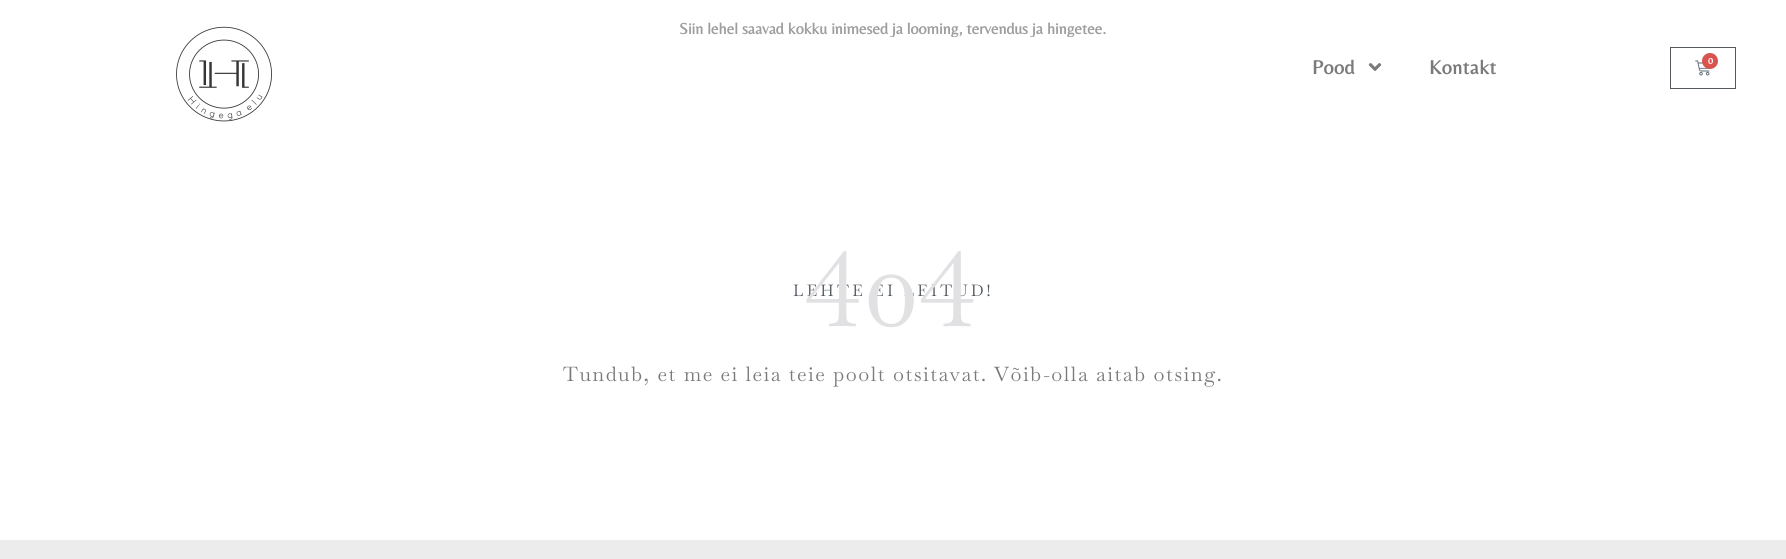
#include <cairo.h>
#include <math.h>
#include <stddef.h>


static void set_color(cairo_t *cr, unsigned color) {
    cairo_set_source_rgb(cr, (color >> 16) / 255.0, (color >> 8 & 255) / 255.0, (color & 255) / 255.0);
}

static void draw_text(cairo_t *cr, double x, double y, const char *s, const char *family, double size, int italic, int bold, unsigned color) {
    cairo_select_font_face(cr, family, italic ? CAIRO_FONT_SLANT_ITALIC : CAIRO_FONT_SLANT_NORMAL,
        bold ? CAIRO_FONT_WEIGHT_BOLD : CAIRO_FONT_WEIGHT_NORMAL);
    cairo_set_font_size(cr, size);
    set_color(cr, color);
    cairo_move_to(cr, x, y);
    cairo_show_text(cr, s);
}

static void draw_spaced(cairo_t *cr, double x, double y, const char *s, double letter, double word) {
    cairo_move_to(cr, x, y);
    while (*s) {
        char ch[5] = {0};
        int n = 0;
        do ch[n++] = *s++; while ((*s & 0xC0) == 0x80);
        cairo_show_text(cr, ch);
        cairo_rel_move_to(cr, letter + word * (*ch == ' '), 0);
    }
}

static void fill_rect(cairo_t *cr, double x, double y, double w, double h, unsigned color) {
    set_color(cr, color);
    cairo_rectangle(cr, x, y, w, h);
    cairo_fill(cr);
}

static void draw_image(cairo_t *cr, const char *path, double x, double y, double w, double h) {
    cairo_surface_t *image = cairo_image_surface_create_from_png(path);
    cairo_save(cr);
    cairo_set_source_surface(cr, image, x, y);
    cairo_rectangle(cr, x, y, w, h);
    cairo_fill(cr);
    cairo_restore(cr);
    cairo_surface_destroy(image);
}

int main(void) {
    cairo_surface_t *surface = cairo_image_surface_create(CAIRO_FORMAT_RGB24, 1786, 559);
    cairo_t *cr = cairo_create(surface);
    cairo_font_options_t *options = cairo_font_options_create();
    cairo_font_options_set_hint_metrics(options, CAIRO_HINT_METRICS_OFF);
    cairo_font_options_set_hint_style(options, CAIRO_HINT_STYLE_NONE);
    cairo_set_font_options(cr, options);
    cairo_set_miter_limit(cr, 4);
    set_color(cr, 0xFFFFFF);
    cairo_paint(cr);
    draw_text(cr, 679, 34, "Siin lehel saavad kokku inimesed ja looming, tervendus ja hingetee.", "Belleza", 16, 0, 1, 0x9E9E9E);
    fill_rect(cr, 890, 37, 183, 1, 0xFFFFFF);
    draw_image(cr, "assets/img1.png", 176, 26, 96, 96);
    cairo_set_font_size(cr, 20);
    set_color(cr, 0x7A7A7A);
    draw_spaced(cr, 1312, 74, "Pood", 0.5, 0);
    draw_image(cr, "assets/img2.png", 1368, 63, 14, 8);
    draw_spaced(cr, 1429, 74, "Kontakt", 0.5, 0);
    cairo_rectangle(cr, 1670.5, 47.5, 65, 41);
    set_color(cr, 0x54595F);
    cairo_set_line_width(cr, 1);
    cairo_stroke(cr);
    draw_image(cr, "assets/img3.png", 1695, 60, 15, 16);
    set_color(cr, 0xD9534F);
    cairo_arc(cr, 1710, 61, 8, 0, 2 * M_PI);
    cairo_fill(cr);
    draw_text(cr, 1708, 64, "0", "Belleza", 10, 0, 1, 0xFFFFFF);
    cairo_select_font_face(cr, "Baskervville", CAIRO_FONT_SLANT_NORMAL, CAIRO_FONT_WEIGHT_NORMAL);
    cairo_set_font_size(cr, 16);
    set_color(cr, 0x54595F);
    draw_spaced(cr, 793, 296, "LEHTE EI LEITUD!", 3.25, 0);
    cairo_set_font_size(cr, 110);
    set_color(cr, 0xE1E1E3);
    draw_spaced(cr, 807, 326, "404", 3.25, 0);
    cairo_set_font_size(cr, 20);
    set_color(cr, 0x7A7A7A);
    draw_spaced(cr, 563, 381, "Tundub, et me ei leia teie poolt otsitavat. Võib-olla aitab otsing.", 1.5, 0);
    fill_rect(cr, 0, 540, 1786, 19, 0xECECEC);
    cairo_surface_write_to_png(surface, "output.png");
    cairo_font_options_destroy(options);
    cairo_destroy(cr);
    cairo_surface_destroy(surface);
    return 0;
}
